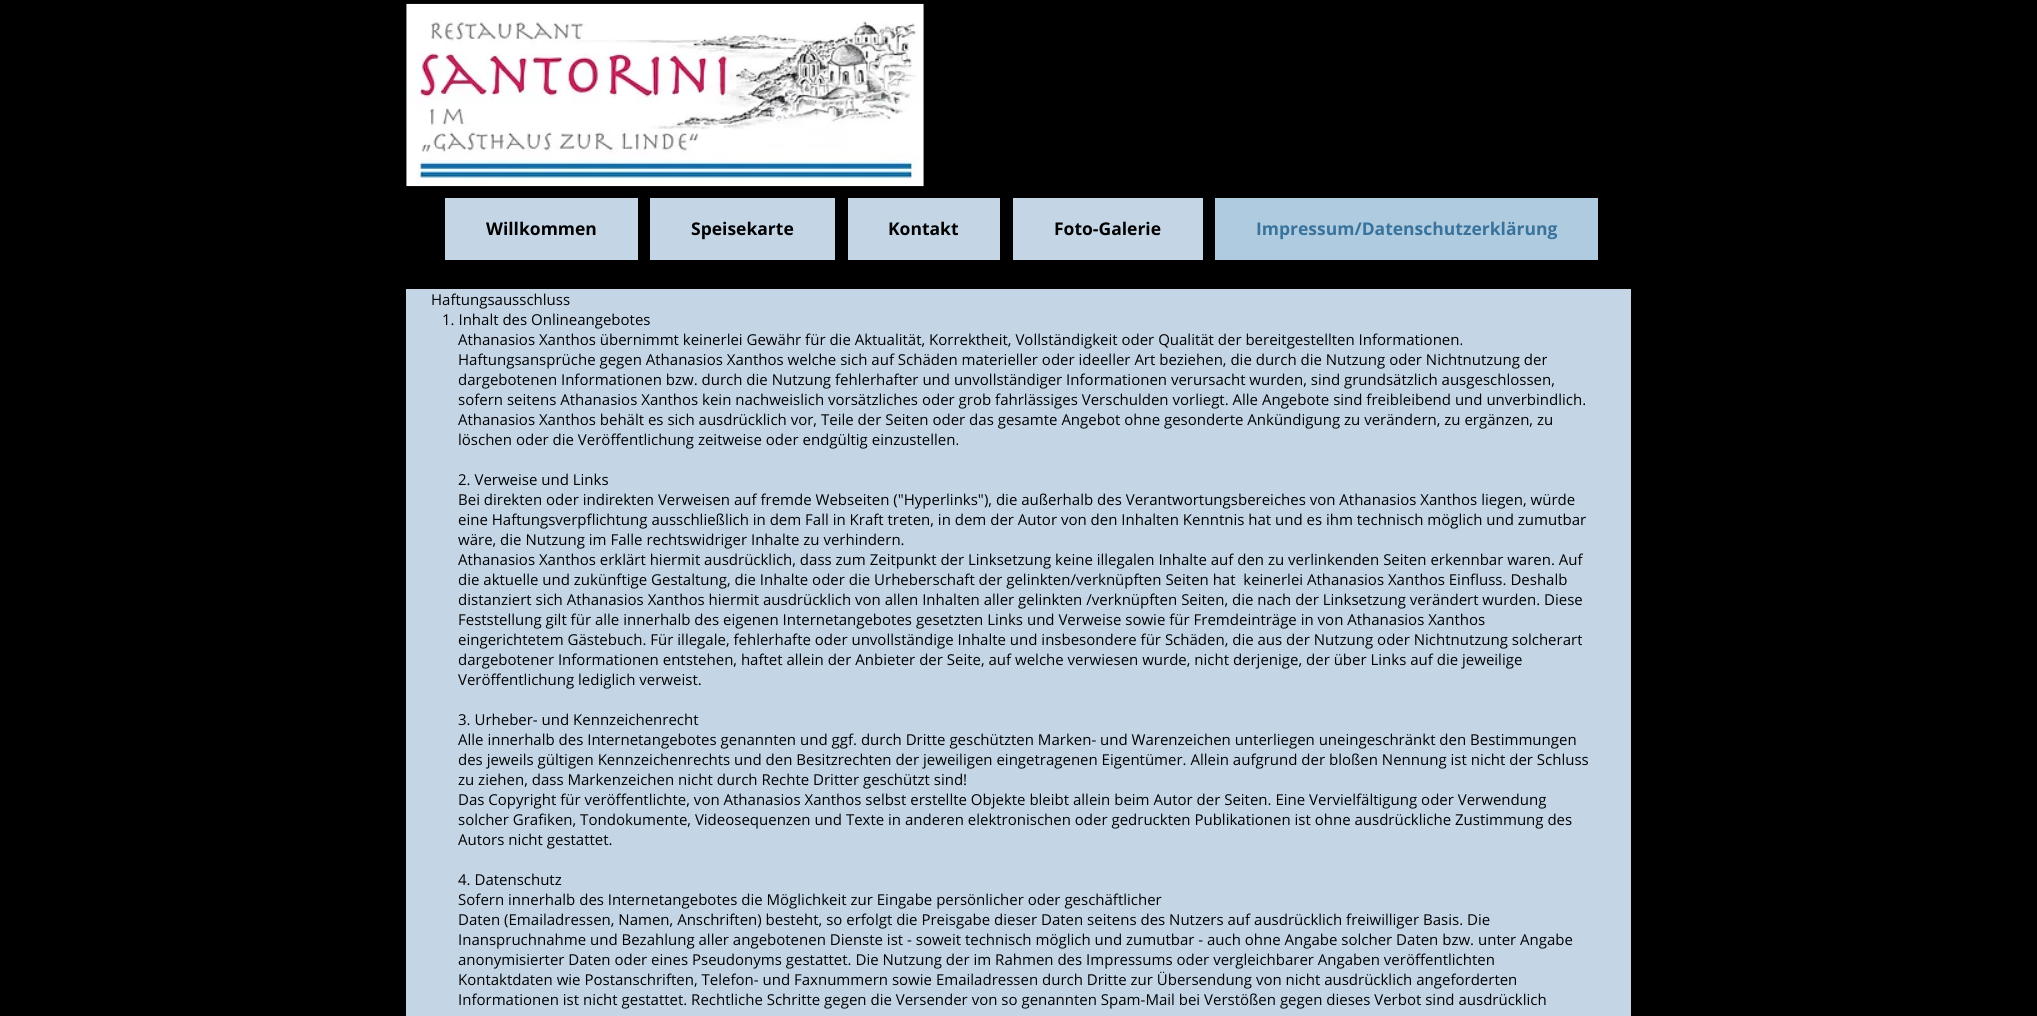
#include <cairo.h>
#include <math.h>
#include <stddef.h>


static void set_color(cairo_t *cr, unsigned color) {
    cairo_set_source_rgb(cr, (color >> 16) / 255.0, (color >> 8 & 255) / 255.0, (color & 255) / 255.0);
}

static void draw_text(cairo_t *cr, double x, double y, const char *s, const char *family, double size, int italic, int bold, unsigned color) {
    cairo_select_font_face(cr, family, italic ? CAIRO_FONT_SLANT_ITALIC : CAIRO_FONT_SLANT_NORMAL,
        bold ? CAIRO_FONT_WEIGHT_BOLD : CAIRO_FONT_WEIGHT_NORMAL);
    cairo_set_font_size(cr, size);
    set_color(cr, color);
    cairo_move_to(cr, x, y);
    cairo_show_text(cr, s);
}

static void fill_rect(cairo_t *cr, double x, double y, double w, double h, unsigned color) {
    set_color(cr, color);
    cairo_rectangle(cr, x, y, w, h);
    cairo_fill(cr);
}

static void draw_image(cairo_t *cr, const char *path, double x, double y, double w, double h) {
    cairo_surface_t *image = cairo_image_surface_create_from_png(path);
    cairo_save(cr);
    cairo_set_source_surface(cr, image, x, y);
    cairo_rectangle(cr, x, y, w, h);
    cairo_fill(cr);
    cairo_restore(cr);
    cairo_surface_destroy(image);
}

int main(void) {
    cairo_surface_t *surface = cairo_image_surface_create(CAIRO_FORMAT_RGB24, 2037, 1016);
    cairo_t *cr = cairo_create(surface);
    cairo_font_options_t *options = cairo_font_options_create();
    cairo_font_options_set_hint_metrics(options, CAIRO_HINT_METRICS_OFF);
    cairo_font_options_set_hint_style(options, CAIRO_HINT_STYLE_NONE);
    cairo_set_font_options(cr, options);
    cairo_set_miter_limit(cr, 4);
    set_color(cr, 0x000000);
    cairo_paint(cr);
    draw_image(cr, "assets/img1.png", 406, 3, 518, 184);
    fill_rect(cr, 445, 198, 193, 62, 0xC4D5E6);
    draw_text(cr, 486, 235, "Willkommen", "Open Sans", 17.5, 0, 1, 0x000000);
    fill_rect(cr, 650, 198, 185, 62, 0xC4D5E6);
    draw_text(cr, 691, 235, "Speisekarte", "Open Sans", 17.5, 0, 1, 0x000000);
    fill_rect(cr, 848, 198, 152, 62, 0xC4D5E6);
    draw_text(cr, 888, 235, "Kontakt", "Open Sans", 17.5, 0, 1, 0x000000);
    fill_rect(cr, 1013, 198, 190, 62, 0xC4D5E6);
    draw_text(cr, 1054, 235, "Foto-Galerie", "Open Sans", 17.5, 0, 1, 0x000000);
    fill_rect(cr, 1215, 198, 383, 62, 0xAFCBE0);
    draw_text(cr, 1256, 235, "Impressum/Datenschutzerklärung", "Open Sans", 17.5, 0, 1, 0x39729B);
    fill_rect(cr, 406, 289, 1225, 727, 0xC4D5E6);
    draw_text(cr, 431, 305, "Haftungsausschluss", "Open Sans", 15, 0, 0, 0x000000);
    draw_text(cr, 442, 325, "1. Inhalt des Onlineangebotes", "Open Sans", 15, 0, 0, 0x000000);
    draw_text(cr, 458, 345, "Athanasios Xanthos übernimmt keinerlei Gewähr für die Aktualität, Korrektheit, Vollständigkeit oder Qualität der bereitgestellten Informationen.", "Open Sans", 15, 0, 0, 0x000000);
    draw_text(cr, 458, 365, "Haftungsansprüche gegen Athanasios Xanthos welche sich auf Schäden materieller oder ideeller Art beziehen, die durch die Nutzung oder Nichtnutzung der", "Open Sans", 15, 0, 0, 0x000000);
    draw_text(cr, 458, 385, "dargebotenen Informationen bzw. durch die Nutzung fehlerhafter und unvollständiger Informationen verursacht wurden, sind grundsätzlich ausgeschlossen,", "Open Sans", 15, 0, 0, 0x000000);
    draw_text(cr, 458, 405, "sofern seitens Athanasios Xanthos kein nachweislich vorsätzliches oder grob fahrlässiges Verschulden vorliegt. Alle Angebote sind freibleibend und unverbindlich.", "Open Sans", 15, 0, 0, 0x000000);
    draw_text(cr, 458, 425, "Athanasios Xanthos behält es sich ausdrücklich vor, Teile der Seiten oder das gesamte Angebot ohne gesonderte Ankündigung zu verändern, zu ergänzen, zu", "Open Sans", 15, 0, 0, 0x000000);
    draw_text(cr, 458, 445, "löschen oder die Veröffentlichung zeitweise oder endgültig einzustellen.", "Open Sans", 15, 0, 0, 0x000000);
    draw_text(cr, 458, 485, "2. Verweise und Links", "Open Sans", 15, 0, 0, 0x000000);
    draw_text(cr, 458, 505, "Bei direkten oder indirekten Verweisen auf fremde Webseiten (\"Hyperlinks\"), die außerhalb des Verantwortungsbereiches von Athanasios Xanthos liegen, würde", "Open Sans", 15, 0, 0, 0x000000);
    draw_text(cr, 458, 525, "eine Haftungsverpflichtung ausschließlich in dem Fall in Kraft treten, in dem der Autor von den Inhalten Kenntnis hat und es ihm technisch möglich und zumutbar", "Open Sans", 15, 0, 0, 0x000000);
    draw_text(cr, 458, 545, "wäre, die Nutzung im Falle rechtswidriger Inhalte zu verhindern.", "Open Sans", 15, 0, 0, 0x000000);
    draw_text(cr, 458, 565, "Athanasios Xanthos erklärt hiermit ausdrücklich, dass zum Zeitpunkt der Linksetzung keine illegalen Inhalte auf den zu verlinkenden Seiten erkennbar waren. Auf", "Open Sans", 15, 0, 0, 0x000000);
    draw_text(cr, 458, 585, "die aktuelle und zukünftige Gestaltung, die Inhalte oder die Urheberschaft der gelinkten/verknüpften Seiten hat  keinerlei Athanasios Xanthos Einfluss. Deshalb", "Open Sans", 15, 0, 0, 0x000000);
    draw_text(cr, 458, 605, "distanziert sich Athanasios Xanthos hiermit ausdrücklich von allen Inhalten aller gelinkten /verknüpften Seiten, die nach der Linksetzung verändert wurden. Diese", "Open Sans", 15, 0, 0, 0x000000);
    draw_text(cr, 458, 625, "Feststellung gilt für alle innerhalb des eigenen Internetangebotes gesetzten Links und Verweise sowie für Fremdeinträge in von Athanasios Xanthos", "Open Sans", 15, 0, 0, 0x000000);
    draw_text(cr, 458, 645, "eingerichtetem Gästebuch. Für illegale, fehlerhafte oder unvollständige Inhalte und insbesondere für Schäden, die aus der Nutzung oder Nichtnutzung solcherart", "Open Sans", 15, 0, 0, 0x000000);
    draw_text(cr, 458, 665, "dargebotener Informationen entstehen, haftet allein der Anbieter der Seite, auf welche verwiesen wurde, nicht derjenige, der über Links auf die jeweilige", "Open Sans", 15, 0, 0, 0x000000);
    draw_text(cr, 458, 685, "Veröffentlichung lediglich verweist.", "Open Sans", 15, 0, 0, 0x000000);
    draw_text(cr, 458, 725, "3. Urheber- und Kennzeichenrecht", "Open Sans", 15, 0, 0, 0x000000);
    draw_text(cr, 458, 745, "Alle innerhalb des Internetangebotes genannten und ggf. durch Dritte geschützten Marken- und Warenzeichen unterliegen uneingeschränkt den Bestimmungen", "Open Sans", 15, 0, 0, 0x000000);
    draw_text(cr, 458, 765, "des jeweils gültigen Kennzeichenrechts und den Besitzrechten der jeweiligen eingetragenen Eigentümer. Allein aufgrund der bloßen Nennung ist nicht der Schluss", "Open Sans", 15, 0, 0, 0x000000);
    draw_text(cr, 458, 785, "zu ziehen, dass Markenzeichen nicht durch Rechte Dritter geschützt sind!", "Open Sans", 15, 0, 0, 0x000000);
    draw_text(cr, 458, 805, "Das Copyright für veröffentlichte, von Athanasios Xanthos selbst erstellte Objekte bleibt allein beim Autor der Seiten. Eine Vervielfältigung oder Verwendung", "Open Sans", 15, 0, 0, 0x000000);
    draw_text(cr, 458, 825, "solcher Grafiken, Tondokumente, Videosequenzen und Texte in anderen elektronischen oder gedruckten Publikationen ist ohne ausdrückliche Zustimmung des", "Open Sans", 15, 0, 0, 0x000000);
    draw_text(cr, 458, 845, "Autors nicht gestattet.", "Open Sans", 15, 0, 0, 0x000000);
    draw_text(cr, 458, 885, "4. Datenschutz", "Open Sans", 15, 0, 0, 0x000000);
    draw_text(cr, 458, 905, "Sofern innerhalb des Internetangebotes die Möglichkeit zur Eingabe persönlicher oder geschäftlicher", "Open Sans", 15, 0, 0, 0x000000);
    draw_text(cr, 458, 925, "Daten (Emailadressen, Namen, Anschriften) besteht, so erfolgt die Preisgabe dieser Daten seitens des Nutzers auf ausdrücklich freiwilliger Basis. Die", "Open Sans", 15, 0, 0, 0x000000);
    draw_text(cr, 458, 945, "Inanspruchnahme und Bezahlung aller angebotenen Dienste ist - soweit technisch möglich und zumutbar - auch ohne Angabe solcher Daten bzw. unter Angabe", "Open Sans", 15, 0, 0, 0x000000);
    draw_text(cr, 458, 965, "anonymisierter Daten oder eines Pseudonyms gestattet. Die Nutzung der im Rahmen des Impressums oder vergleichbarer Angaben veröffentlichten", "Open Sans", 15, 0, 0, 0x000000);
    draw_text(cr, 458, 985, "Kontaktdaten wie Postanschriften, Telefon- und Faxnummern sowie Emailadressen durch Dritte zur Übersendung von nicht ausdrücklich angeforderten", "Open Sans", 15, 0, 0, 0x000000);
    draw_text(cr, 458, 1005, "Informationen ist nicht gestattet. Rechtliche Schritte gegen die Versender von so genannten Spam-Mail bei Verstößen gegen dieses Verbot sind ausdrücklich", "Open Sans", 15, 0, 0, 0x000000);
    cairo_surface_write_to_png(surface, "output.png");
    cairo_font_options_destroy(options);
    cairo_destroy(cr);
    cairo_surface_destroy(surface);
    return 0;
}
